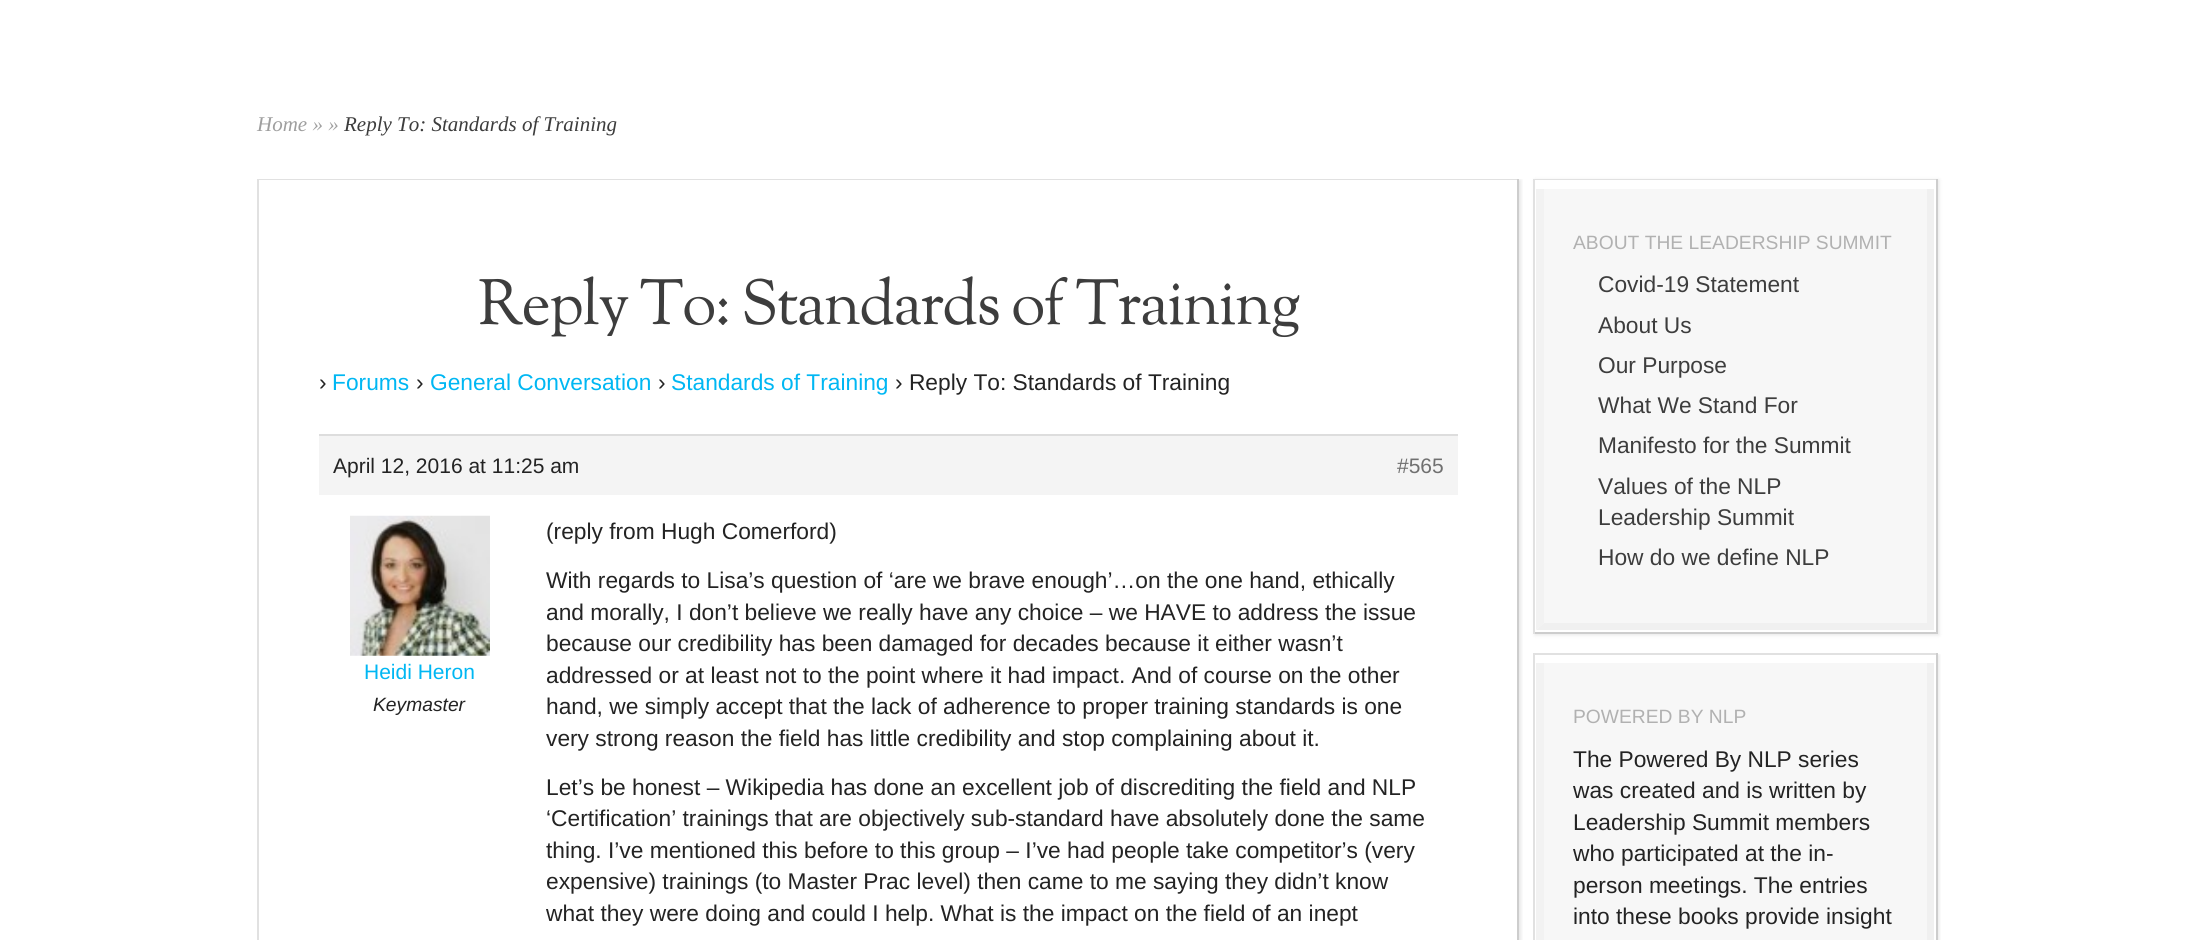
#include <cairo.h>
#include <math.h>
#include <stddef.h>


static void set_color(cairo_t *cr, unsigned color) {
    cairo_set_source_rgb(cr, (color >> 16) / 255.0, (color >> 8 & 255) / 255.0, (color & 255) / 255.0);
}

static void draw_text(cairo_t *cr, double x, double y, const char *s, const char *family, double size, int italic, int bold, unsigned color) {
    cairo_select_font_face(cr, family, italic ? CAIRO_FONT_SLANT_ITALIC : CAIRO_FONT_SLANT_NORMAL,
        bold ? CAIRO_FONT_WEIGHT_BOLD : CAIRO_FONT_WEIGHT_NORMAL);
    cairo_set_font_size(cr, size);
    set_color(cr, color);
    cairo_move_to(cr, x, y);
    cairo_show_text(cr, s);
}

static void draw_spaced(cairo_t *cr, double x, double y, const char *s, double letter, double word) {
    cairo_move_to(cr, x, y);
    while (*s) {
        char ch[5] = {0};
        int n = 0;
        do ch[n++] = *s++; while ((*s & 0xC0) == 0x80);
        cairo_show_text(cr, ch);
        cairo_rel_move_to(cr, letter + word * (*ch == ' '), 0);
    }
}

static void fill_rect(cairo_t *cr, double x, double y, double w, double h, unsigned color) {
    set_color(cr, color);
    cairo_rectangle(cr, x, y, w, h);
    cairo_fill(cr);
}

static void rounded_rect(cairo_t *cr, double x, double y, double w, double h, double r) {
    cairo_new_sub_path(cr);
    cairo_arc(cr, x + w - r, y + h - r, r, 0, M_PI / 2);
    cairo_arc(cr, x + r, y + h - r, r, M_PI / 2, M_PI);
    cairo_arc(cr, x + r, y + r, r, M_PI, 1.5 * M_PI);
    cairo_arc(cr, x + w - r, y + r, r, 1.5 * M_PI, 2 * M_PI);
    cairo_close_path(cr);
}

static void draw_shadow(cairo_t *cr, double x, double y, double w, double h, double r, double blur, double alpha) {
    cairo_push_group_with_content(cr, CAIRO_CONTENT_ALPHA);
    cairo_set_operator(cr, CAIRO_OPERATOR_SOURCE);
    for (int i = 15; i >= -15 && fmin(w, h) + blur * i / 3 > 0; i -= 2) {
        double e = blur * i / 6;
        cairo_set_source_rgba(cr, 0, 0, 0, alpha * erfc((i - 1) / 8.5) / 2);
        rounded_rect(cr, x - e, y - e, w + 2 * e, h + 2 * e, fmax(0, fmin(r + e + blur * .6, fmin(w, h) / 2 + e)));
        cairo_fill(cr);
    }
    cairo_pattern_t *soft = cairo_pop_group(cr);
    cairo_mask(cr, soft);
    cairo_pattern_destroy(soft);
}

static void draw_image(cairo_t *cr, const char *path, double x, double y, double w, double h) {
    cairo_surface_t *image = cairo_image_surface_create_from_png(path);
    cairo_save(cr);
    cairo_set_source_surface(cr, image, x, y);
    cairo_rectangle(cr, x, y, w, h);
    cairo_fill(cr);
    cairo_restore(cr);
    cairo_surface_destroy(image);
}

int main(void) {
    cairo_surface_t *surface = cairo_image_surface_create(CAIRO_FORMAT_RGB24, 2193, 940);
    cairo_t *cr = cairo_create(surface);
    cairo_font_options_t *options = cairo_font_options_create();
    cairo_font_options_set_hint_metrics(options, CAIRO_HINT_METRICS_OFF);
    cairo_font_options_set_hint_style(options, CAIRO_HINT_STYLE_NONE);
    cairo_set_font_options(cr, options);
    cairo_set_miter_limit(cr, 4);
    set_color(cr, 0xFFFFFF);
    cairo_paint(cr);
    draw_text(cr, 257, 131, "Home » »", "Liberation Serif", 21, 1, 0, 0x9F9F9F);
    draw_text(cr, 344, 131, "Reply To: Standards of Training", "Liberation Serif", 21, 1, 0, 0x3D3D3D);
    cairo_save(cr);
    cairo_rectangle(cr, 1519, 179, 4, 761);
    cairo_clip(cr);
    set_color(cr, 0x000000);
    draw_shadow(cr, 259, 180, 1262, 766, 0, 2, 0.1);
    cairo_restore(cr);
    fill_rect(cr, 257, 179, 1262, 1, 0xE1E1E1);
    fill_rect(cr, 1517, 179, 2, 761, 0xCDCDCD);
    fill_rect(cr, 257, 179, 2, 761, 0xE1E1E1);
    cairo_select_font_face(cr, "OFL Sorts Mill Goudy TT Medium", CAIRO_FONT_SLANT_NORMAL, CAIRO_FONT_WEIGHT_NORMAL);
    cairo_set_font_size(cr, 63);
    set_color(cr, 0x3D3D3D);
    draw_spaced(cr, 478, 324, "Reply To: Standards of Training", -1.75, 0);
    draw_text(cr, 319, 390, "›", "Liberation Sans", 22.75, 0, 0, 0x232323);
    draw_text(cr, 332, 390, "Forums", "Liberation Sans", 22.75, 0, 0, 0x00B7F3);
    draw_text(cr, 416, 390, "›", "Liberation Sans", 22.75, 0, 0, 0x232323);
    draw_text(cr, 430, 390, "General Conversation", "Liberation Sans", 22.75, 0, 0, 0x00B7F3);
    draw_text(cr, 658, 390, "›", "Liberation Sans", 22.75, 0, 0, 0x232323);
    draw_text(cr, 671, 390, "Standards of Training", "Liberation Sans", 22.75, 0, 0, 0x00B7F3);
    draw_text(cr, 895, 390, "› Reply To: Standards of Training", "Liberation Sans", 22.75, 0, 0, 0x232323);
    fill_rect(cr, 319, 436, 1139, 59, 0xF4F4F4);
    fill_rect(cr, 319, 434, 1139, 2, 0xDDDDDD);
    draw_text(cr, 333, 473, "April 12, 2016 at 11:25 am", "Liberation Sans", 21, 0, 0, 0x232323);
    draw_text(cr, 1397, 473, "#565", "Liberation Sans", 21, 0, 0, 0x707070);
    draw_image(cr, "assets/img1.png", 350, 515, 140, 141);
    draw_text(cr, 364, 679, "Heidi Heron", "Liberation Sans", 21, 0, 0, 0x00B7F3);
    draw_text(cr, 373, 711, "Keymaster", "Liberation Sans", 19.25, 1, 0, 0x232323);
    draw_text(cr, 546, 539, "(reply from Hugh Comerford)", "Liberation Sans", 22.75, 0, 0, 0x232323);
    draw_text(cr, 546, 588, "With regards to Lisa’s question of ‘are we brave enough’…on the one hand, ethically", "Liberation Sans", 22.75, 0, 0, 0x232323);
    draw_text(cr, 546, 620, "and morally, I don’t believe we really have any choice – we HAVE to address the issue", "Liberation Sans", 22.75, 0, 0, 0x232323);
    draw_text(cr, 546, 651, "because our credibility has been damaged for decades because it either wasn’t", "Liberation Sans", 22.75, 0, 0, 0x232323);
    draw_text(cr, 546, 683, "addressed or at least not to the point where it had impact. And of course on the other", "Liberation Sans", 22.75, 0, 0, 0x232323);
    draw_text(cr, 546, 714, "hand, we simply accept that the lack of adherence to proper training standards is one", "Liberation Sans", 22.75, 0, 0, 0x232323);
    draw_text(cr, 546, 746, "very strong reason the field has little credibility and stop complaining about it.", "Liberation Sans", 22.75, 0, 0, 0x232323);
    draw_text(cr, 546, 795, "Let’s be honest – Wikipedia has done an excellent job of discrediting the field and NLP", "Liberation Sans", 22.75, 0, 0, 0x232323);
    draw_text(cr, 546, 826, "‘Certification’ trainings that are objectively sub-standard have absolutely done the same", "Liberation Sans", 22.75, 0, 0, 0x232323);
    draw_text(cr, 546, 858, "thing. I’ve mentioned this before to this group – I’ve had people take competitor’s (very", "Liberation Sans", 22.75, 0, 0, 0x232323);
    draw_text(cr, 546, 889, "expensive) trainings (to Master Prac level) then came to me saying they didn’t know", "Liberation Sans", 22.75, 0, 0, 0x232323);
    draw_text(cr, 546, 921, "what they were doing and could I help. What is the impact on the field of an inept", "Liberation Sans", 22.75, 0, 0, 0x232323);
    cairo_save(cr);
    cairo_set_fill_rule(cr, CAIRO_FILL_RULE_EVEN_ODD);
    cairo_new_path(cr);
    cairo_move_to(cr, 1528, 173);
    cairo_line_to(cr, 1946, 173);
    cairo_line_to(cr, 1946, 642);
    cairo_line_to(cr, 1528, 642);
    cairo_close_path(cr);
    cairo_move_to(cr, 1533, 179);
    cairo_line_to(cr, 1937, 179);
    cairo_line_to(cr, 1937, 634);
    cairo_line_to(cr, 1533, 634);
    cairo_close_path(cr);
    cairo_clip(cr);
    set_color(cr, 0x000000);
    draw_shadow(cr, 1535, 180, 404, 455, 0, 2, 0.1);
    cairo_restore(cr);
    fill_rect(cr, 1533, 179, 404, 1, 0xE1E1E1);
    fill_rect(cr, 1936, 179, 2, 455, 0xCDCDCD);
    fill_rect(cr, 1533, 632, 404, 2, 0xCDCDCD);
    fill_rect(cr, 1533, 179, 2, 455, 0xE1E1E1);
    fill_rect(cr, 1537, 189, 390, 441, 0xF7F7F7);
    fill_rect(cr, 1927, 189, 7, 441, 0xF0F0F0);
    cairo_new_path(cr);
    cairo_move_to(cr, 1934, 630);
    cairo_line_to(cr, 1536, 630);
    cairo_line_to(cr, 1544, 623);
    cairo_line_to(cr, 1927, 623);
    cairo_close_path(cr);
    cairo_fill(cr);
    set_color(cr, 0xF2F2F2);
    cairo_new_path(cr);
    cairo_move_to(cr, 1536, 630);
    cairo_line_to(cr, 1536, 189);
    cairo_line_to(cr, 1544, 189);
    cairo_line_to(cr, 1544, 623);
    cairo_close_path(cr);
    cairo_fill(cr);
    draw_text(cr, 1573, 249, "ABOUT THE LEADERSHIP SUMMIT", "Liberation Sans", 19.25, 0, 0, 0xB1B1B1);
    draw_text(cr, 1598, 292, "Covid-19 Statement", "Liberation Sans", 22.75, 0, 0, 0x3D3D3D);
    draw_text(cr, 1598, 333, "About Us", "Liberation Sans", 22.75, 0, 0, 0x3D3D3D);
    draw_text(cr, 1598, 373, "Our Purpose", "Liberation Sans", 22.75, 0, 0, 0x3D3D3D);
    draw_text(cr, 1598, 413, "What We Stand For", "Liberation Sans", 22.75, 0, 0, 0x3D3D3D);
    draw_text(cr, 1598, 453, "Manifesto for the Summit", "Liberation Sans", 22.75, 0, 0, 0x3D3D3D);
    draw_text(cr, 1598, 494, "Values of the NLP", "Liberation Sans", 22.75, 0, 0, 0x3D3D3D);
    draw_text(cr, 1598, 525, "Leadership Summit", "Liberation Sans", 22.75, 0, 0, 0x3D3D3D);
    draw_text(cr, 1598, 565, "How do we define NLP", "Liberation Sans", 22.75, 0, 0, 0x3D3D3D);
    cairo_save(cr);
    cairo_rectangle(cr, 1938, 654, 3, 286);
    cairo_clip(cr);
    set_color(cr, 0x000000);
    draw_shadow(cr, 1535, 655, 404, 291, 0, 2, 0.1);
    cairo_restore(cr);
    fill_rect(cr, 1533, 653, 404, 2, 0xE1E1E1);
    fill_rect(cr, 1936, 653, 2, 287, 0xCDCDCD);
    fill_rect(cr, 1533, 653, 2, 287, 0xE1E1E1);
    fill_rect(cr, 1544, 663, 383, 277, 0xF7F7F7);
    fill_rect(cr, 1927, 663, 7, 277, 0xF0F0F0);
    set_color(cr, 0xF2F2F2);
    cairo_new_path(cr);
    cairo_move_to(cr, 1536, 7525);
    cairo_line_to(cr, 1536, 663);
    cairo_line_to(cr, 1544, 663);
    cairo_line_to(cr, 1544, 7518);
    cairo_close_path(cr);
    cairo_fill(cr);
    draw_text(cr, 1573, 723, "POWERED BY NLP", "Liberation Sans", 19.25, 0, 0, 0xB1B1B1);
    draw_text(cr, 1573, 767, "The Powered By NLP series", "Liberation Sans", 22.75, 0, 0, 0x232323);
    draw_text(cr, 1573, 798, "was created and is written by", "Liberation Sans", 22.75, 0, 0, 0x232323);
    draw_text(cr, 1573, 830, "Leadership Summit members", "Liberation Sans", 22.75, 0, 0, 0x232323);
    draw_text(cr, 1573, 861, "who participated at the in-", "Liberation Sans", 22.75, 0, 0, 0x232323);
    draw_text(cr, 1573, 893, "person meetings. The entries", "Liberation Sans", 22.75, 0, 0, 0x232323);
    draw_text(cr, 1573, 924, "into these books provide insight", "Liberation Sans", 22.75, 0, 0, 0x232323);
    cairo_surface_write_to_png(surface, "output.png");
    cairo_font_options_destroy(options);
    cairo_destroy(cr);
    cairo_surface_destroy(surface);
    return 0;
}
